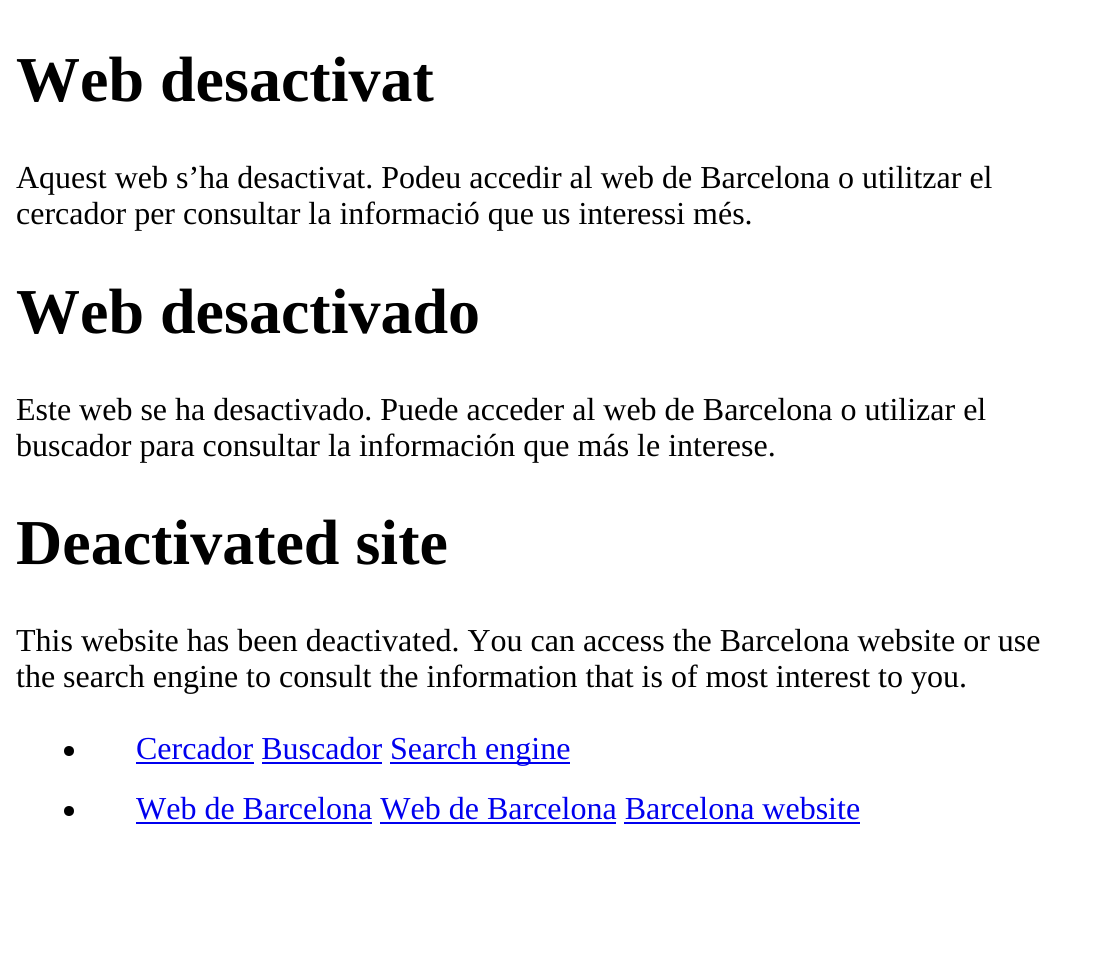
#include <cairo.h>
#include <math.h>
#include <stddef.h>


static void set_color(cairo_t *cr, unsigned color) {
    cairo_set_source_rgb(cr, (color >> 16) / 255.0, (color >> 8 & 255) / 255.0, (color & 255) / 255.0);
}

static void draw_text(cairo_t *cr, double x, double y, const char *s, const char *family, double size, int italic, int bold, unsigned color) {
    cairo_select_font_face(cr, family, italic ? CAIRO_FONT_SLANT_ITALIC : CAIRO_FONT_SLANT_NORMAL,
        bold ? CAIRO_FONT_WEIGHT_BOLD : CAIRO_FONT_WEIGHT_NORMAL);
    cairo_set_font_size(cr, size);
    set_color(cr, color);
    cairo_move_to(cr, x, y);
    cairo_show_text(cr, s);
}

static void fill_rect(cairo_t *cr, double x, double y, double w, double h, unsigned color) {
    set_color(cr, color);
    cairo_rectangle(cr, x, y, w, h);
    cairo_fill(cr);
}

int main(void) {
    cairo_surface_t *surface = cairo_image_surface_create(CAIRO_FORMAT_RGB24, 1100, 963);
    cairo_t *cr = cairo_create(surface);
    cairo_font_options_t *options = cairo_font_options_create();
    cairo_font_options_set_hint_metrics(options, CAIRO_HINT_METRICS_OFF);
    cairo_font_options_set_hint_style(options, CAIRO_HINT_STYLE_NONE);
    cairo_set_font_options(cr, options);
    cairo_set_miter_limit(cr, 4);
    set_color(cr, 0xFFFFFF);
    cairo_paint(cr);
    draw_text(cr, 16, 101, "Web desactivat", "Liberation Serif", 64, 0, 1, 0x000000);
    draw_text(cr, 16, 188, "Aquest web s’ha desactivat. Podeu accedir al web de Barcelona o utilitzar el", "Liberation Serif", 32, 0, 0, 0x000000);
    draw_text(cr, 16, 224, "cercador per consultar la informació que us interessi més.", "Liberation Serif", 32, 0, 0, 0x000000);
    draw_text(cr, 16, 333, "Web desactivado", "Liberation Serif", 64, 0, 1, 0x000000);
    draw_text(cr, 16, 420, "Este web se ha desactivado. Puede acceder al web de Barcelona o utilizar el", "Liberation Serif", 32, 0, 0, 0x000000);
    draw_text(cr, 16, 456, "buscador para consultar la información que más le interese.", "Liberation Serif", 32, 0, 0, 0x000000);
    draw_text(cr, 16, 564, "Deactivated site", "Liberation Serif", 64, 0, 1, 0x000000);
    draw_text(cr, 16, 651, "This website has been deactivated. You can access the Barcelona website or use", "Liberation Serif", 32, 0, 0, 0x000000);
    draw_text(cr, 16, 687, "the search engine to consult the information that is of most interest to you.", "Liberation Serif", 32, 0, 0, 0x000000);
    cairo_new_path(cr);
    cairo_arc(cr, 69, 751, 5, 0, 2 * M_PI);
    cairo_fill(cr);
    draw_text(cr, 136, 759, "Cercador Buscador", "Liberation Serif", 32, 0, 0, 0x0000EE);
    fill_rect(cr, 136, 762, 118, 2, 0x0000EE);
    fill_rect(cr, 390, 762, 180, 2, 0x0000EE);
    draw_text(cr, 390, 759, "Search engine", "Liberation Serif", 32, 0, 0, 0x0000EE);
    fill_rect(cr, 262, 762, 120, 2, 0x0000EE);
    set_color(cr, 0x000000);
    cairo_new_path(cr);
    cairo_arc(cr, 69, 811, 5, 0, 2 * M_PI);
    cairo_fill(cr);
    draw_text(cr, 136, 819, "Web de Barcelona Web de Barcelona Barcelona website", "Liberation Serif", 32, 0, 0, 0x0000EE);
    fill_rect(cr, 136, 822, 236, 2, 0x0000EE);
    fill_rect(cr, 380, 822, 236, 2, 0x0000EE);
    fill_rect(cr, 624, 822, 236, 2, 0x0000EE);
    cairo_surface_write_to_png(surface, "output.png");
    cairo_font_options_destroy(options);
    cairo_destroy(cr);
    cairo_surface_destroy(surface);
    return 0;
}
